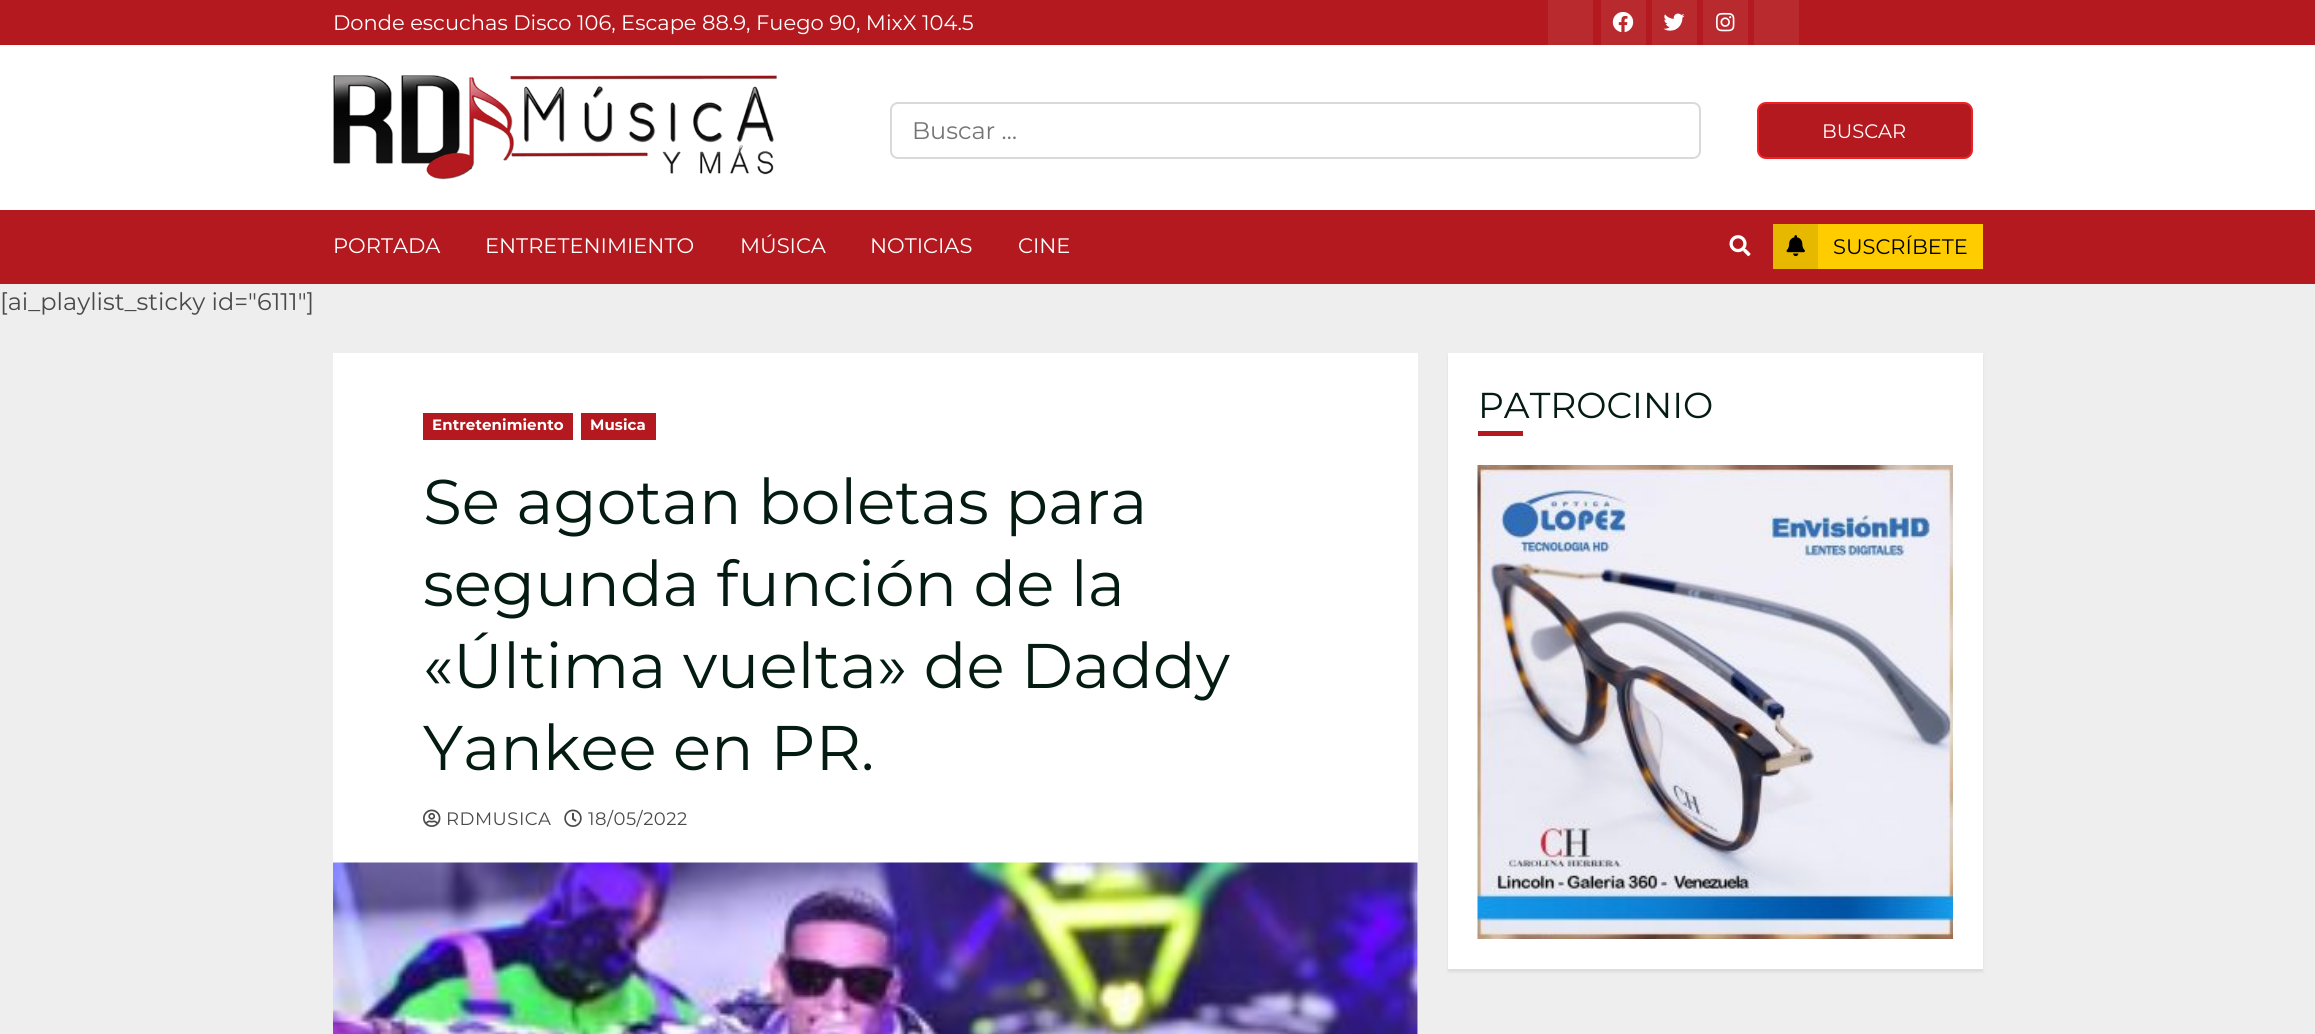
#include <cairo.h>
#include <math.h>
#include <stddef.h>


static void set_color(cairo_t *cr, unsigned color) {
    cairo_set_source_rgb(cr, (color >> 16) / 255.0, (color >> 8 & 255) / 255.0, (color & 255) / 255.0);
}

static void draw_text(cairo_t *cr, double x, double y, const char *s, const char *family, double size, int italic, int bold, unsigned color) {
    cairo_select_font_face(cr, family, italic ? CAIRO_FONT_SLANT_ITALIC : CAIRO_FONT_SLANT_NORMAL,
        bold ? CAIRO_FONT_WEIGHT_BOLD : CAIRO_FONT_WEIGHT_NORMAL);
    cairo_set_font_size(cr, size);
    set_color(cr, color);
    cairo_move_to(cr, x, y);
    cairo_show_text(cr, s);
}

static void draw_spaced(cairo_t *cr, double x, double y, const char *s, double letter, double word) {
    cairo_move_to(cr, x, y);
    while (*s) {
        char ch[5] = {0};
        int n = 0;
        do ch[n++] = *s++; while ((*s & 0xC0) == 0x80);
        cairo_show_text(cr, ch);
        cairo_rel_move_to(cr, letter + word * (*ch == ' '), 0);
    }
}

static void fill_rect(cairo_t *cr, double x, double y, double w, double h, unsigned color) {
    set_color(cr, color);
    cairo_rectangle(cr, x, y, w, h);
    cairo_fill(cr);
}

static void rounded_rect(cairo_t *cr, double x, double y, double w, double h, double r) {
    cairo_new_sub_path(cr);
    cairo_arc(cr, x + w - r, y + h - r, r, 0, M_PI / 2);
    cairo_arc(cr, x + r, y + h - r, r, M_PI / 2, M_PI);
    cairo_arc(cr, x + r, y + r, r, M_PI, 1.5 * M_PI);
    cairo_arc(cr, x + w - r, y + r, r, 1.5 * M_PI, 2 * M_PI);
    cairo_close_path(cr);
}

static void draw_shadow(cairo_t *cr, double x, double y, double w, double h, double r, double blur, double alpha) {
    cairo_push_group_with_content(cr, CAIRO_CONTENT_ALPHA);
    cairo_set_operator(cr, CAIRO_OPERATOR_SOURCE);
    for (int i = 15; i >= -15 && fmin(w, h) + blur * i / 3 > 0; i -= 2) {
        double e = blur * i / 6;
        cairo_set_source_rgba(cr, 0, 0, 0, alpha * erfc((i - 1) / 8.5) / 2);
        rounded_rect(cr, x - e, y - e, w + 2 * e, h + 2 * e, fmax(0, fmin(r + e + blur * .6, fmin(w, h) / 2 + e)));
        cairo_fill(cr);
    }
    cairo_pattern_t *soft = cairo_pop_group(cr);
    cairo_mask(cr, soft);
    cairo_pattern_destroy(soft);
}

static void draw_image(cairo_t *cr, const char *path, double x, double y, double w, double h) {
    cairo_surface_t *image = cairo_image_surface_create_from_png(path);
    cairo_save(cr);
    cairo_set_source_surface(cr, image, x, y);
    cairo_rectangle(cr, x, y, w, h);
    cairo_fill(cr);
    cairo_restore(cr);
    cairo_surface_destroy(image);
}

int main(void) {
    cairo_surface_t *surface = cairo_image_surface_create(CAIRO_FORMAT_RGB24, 2315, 1034);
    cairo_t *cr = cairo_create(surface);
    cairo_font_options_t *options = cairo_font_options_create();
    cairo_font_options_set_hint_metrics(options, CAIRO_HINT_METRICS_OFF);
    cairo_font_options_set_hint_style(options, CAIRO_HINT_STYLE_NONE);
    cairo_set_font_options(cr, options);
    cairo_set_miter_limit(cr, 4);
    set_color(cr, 0xEEEEEE);
    cairo_paint(cr);
    fill_rect(cr, 0, 0, 2315, 45, 0xB3191E);
    draw_text(cr, 333, 30, "Donde escuchas Disco 106, Escape 88.9, Fuego 90, MixX 104.5", "Montserrat", 21, 0, 0, 0xFFFFFF);
    fill_rect(cr, 1548, 0, 45, 45, 0xB92A2F);
    fill_rect(cr, 1601, 0, 45, 45, 0xB92A2F);
    draw_image(cr, "assets/img1.png", 1612, 12, 22, 21);
    fill_rect(cr, 1652, 0, 45, 45, 0xB92A2F);
    draw_image(cr, "assets/img2.png", 1663, 13, 22, 18);
    fill_rect(cr, 1703, 0, 45, 45, 0xB92A2F);
    draw_image(cr, "assets/img3.png", 1716, 12, 19, 20);
    fill_rect(cr, 1754, 0, 45, 45, 0xB92A2F);
    fill_rect(cr, 0, 45, 2315, 165, 0xFFFFFF);
    draw_image(cr, "assets/img4.png", 333, 75, 444, 105);
    rounded_rect(cr, 891, 103, 809, 55, 7);
    set_color(cr, 0xD9D9D9);
    cairo_stroke(cr);
    draw_text(cr, 912, 139, "Buscar …", "Montserrat", 24, 0, 0, 0x757575);
    set_color(cr, 0xB3191E);
    rounded_rect(cr, 1758, 103, 214, 55, 8);
    cairo_fill_preserve(cr);
    set_color(cr, 0xEE2224);
    cairo_stroke(cr);
    draw_text(cr, 1822, 138, "BUSCAR", "Montserrat", 19.5, 0, 0, 0xFFFFFF);
    fill_rect(cr, 0, 210, 2315, 74, 0xB3191E);
    draw_text(cr, 333, 253, "PORTADA", "Montserrat", 21, 0, 0, 0xFFFFFF);
    draw_text(cr, 485, 253, "ENTRETENIMIENTO", "Montserrat", 21, 0, 0, 0xFFFFFF);
    draw_text(cr, 740, 253, "MÚSICA", "Montserrat", 21, 0, 0, 0xFFFFFF);
    draw_text(cr, 870, 253, "NOTICIAS", "Montserrat", 21, 0, 0, 0xFFFFFF);
    draw_text(cr, 1018, 253, "CINE", "Montserrat", 21, 0, 0, 0xFFFFFF);
    draw_image(cr, "assets/img5.png", 1729, 235, 22, 22);
    fill_rect(cr, 1818, 224, 165, 45, 0xFFCC00);
    fill_rect(cr, 1773, 224, 45, 45, 0xE6B800);
    draw_image(cr, "assets/img6.png", 1786, 235, 19, 22);
    draw_text(cr, 1833, 254, "SUSCRÍBETE", "Montserrat", 21, 0, 0, 0x000000);
    draw_text(cr, 0, 310, "[ai_playlist_sticky id=\"6111\"]", "Montserrat", 24, 0, 0, 0x4A4A4A);
    set_color(cr, 0x000000);
    draw_shadow(cr, 1448, 356, 535, 616, 0, 1.5, 0.08);
    fill_rect(cr, 1448, 353, 535, 616, 0xFFFFFF);
    draw_text(cr, 1478, 418, "PATROCINIO", "Montserrat", 36, 0, 0, 0x031B11);
    fill_rect(cr, 1478, 431, 45, 5, 0xB3191E);
    draw_image(cr, "assets/img7.png", 1477, 465, 476, 474);
    fill_rect(cr, 333, 353, 1085, 681, 0xFFFFFF);
    fill_rect(cr, 423, 413, 150, 27, 0xB3191E);
    cairo_select_font_face(cr, "Montserrat", CAIRO_FONT_SLANT_NORMAL, CAIRO_FONT_WEIGHT_BOLD);
    cairo_set_font_size(cr, 15);
    set_color(cr, 0xFFFFFF);
    draw_spaced(cr, 432, 430, "Entretenimiento", 0.1, 0);
    fill_rect(cr, 581, 413, 75, 27, 0xB3191E);
    set_color(cr, 0xFFFFFF);
    draw_spaced(cr, 590, 430, "Musica", 0.1, 0);
    draw_text(cr, 423, 524, "Se agotan boletas para", "Montserrat", 63, 0, 0, 0x031B11);
    draw_text(cr, 423, 606, "segunda función de la", "Montserrat", 63, 0, 0, 0x031B11);
    draw_text(cr, 423, 688, "«Última vuelta» de Daddy", "Montserrat", 63, 0, 0, 0x031B11);
    draw_text(cr, 423, 770, "Yankee en PR.", "Montserrat", 63, 0, 0, 0x031B11);
    draw_image(cr, "assets/img8.png", 423, 809, 18, 18);
    cairo_set_font_size(cr, 18);
    set_color(cr, 0x4A4A4A);
    draw_spaced(cr, 446, 825, "RDMUSICA", 0.5, 0);
    draw_image(cr, "assets/img9.png", 564, 809, 18, 18);
    draw_spaced(cr, 588, 825, "18/05/2022", 0.5, 0);
    draw_image(cr, "assets/img10.png", 333, 862, 1085, 172);
    cairo_surface_write_to_png(surface, "output.png");
    cairo_font_options_destroy(options);
    cairo_destroy(cr);
    cairo_surface_destroy(surface);
    return 0;
}
